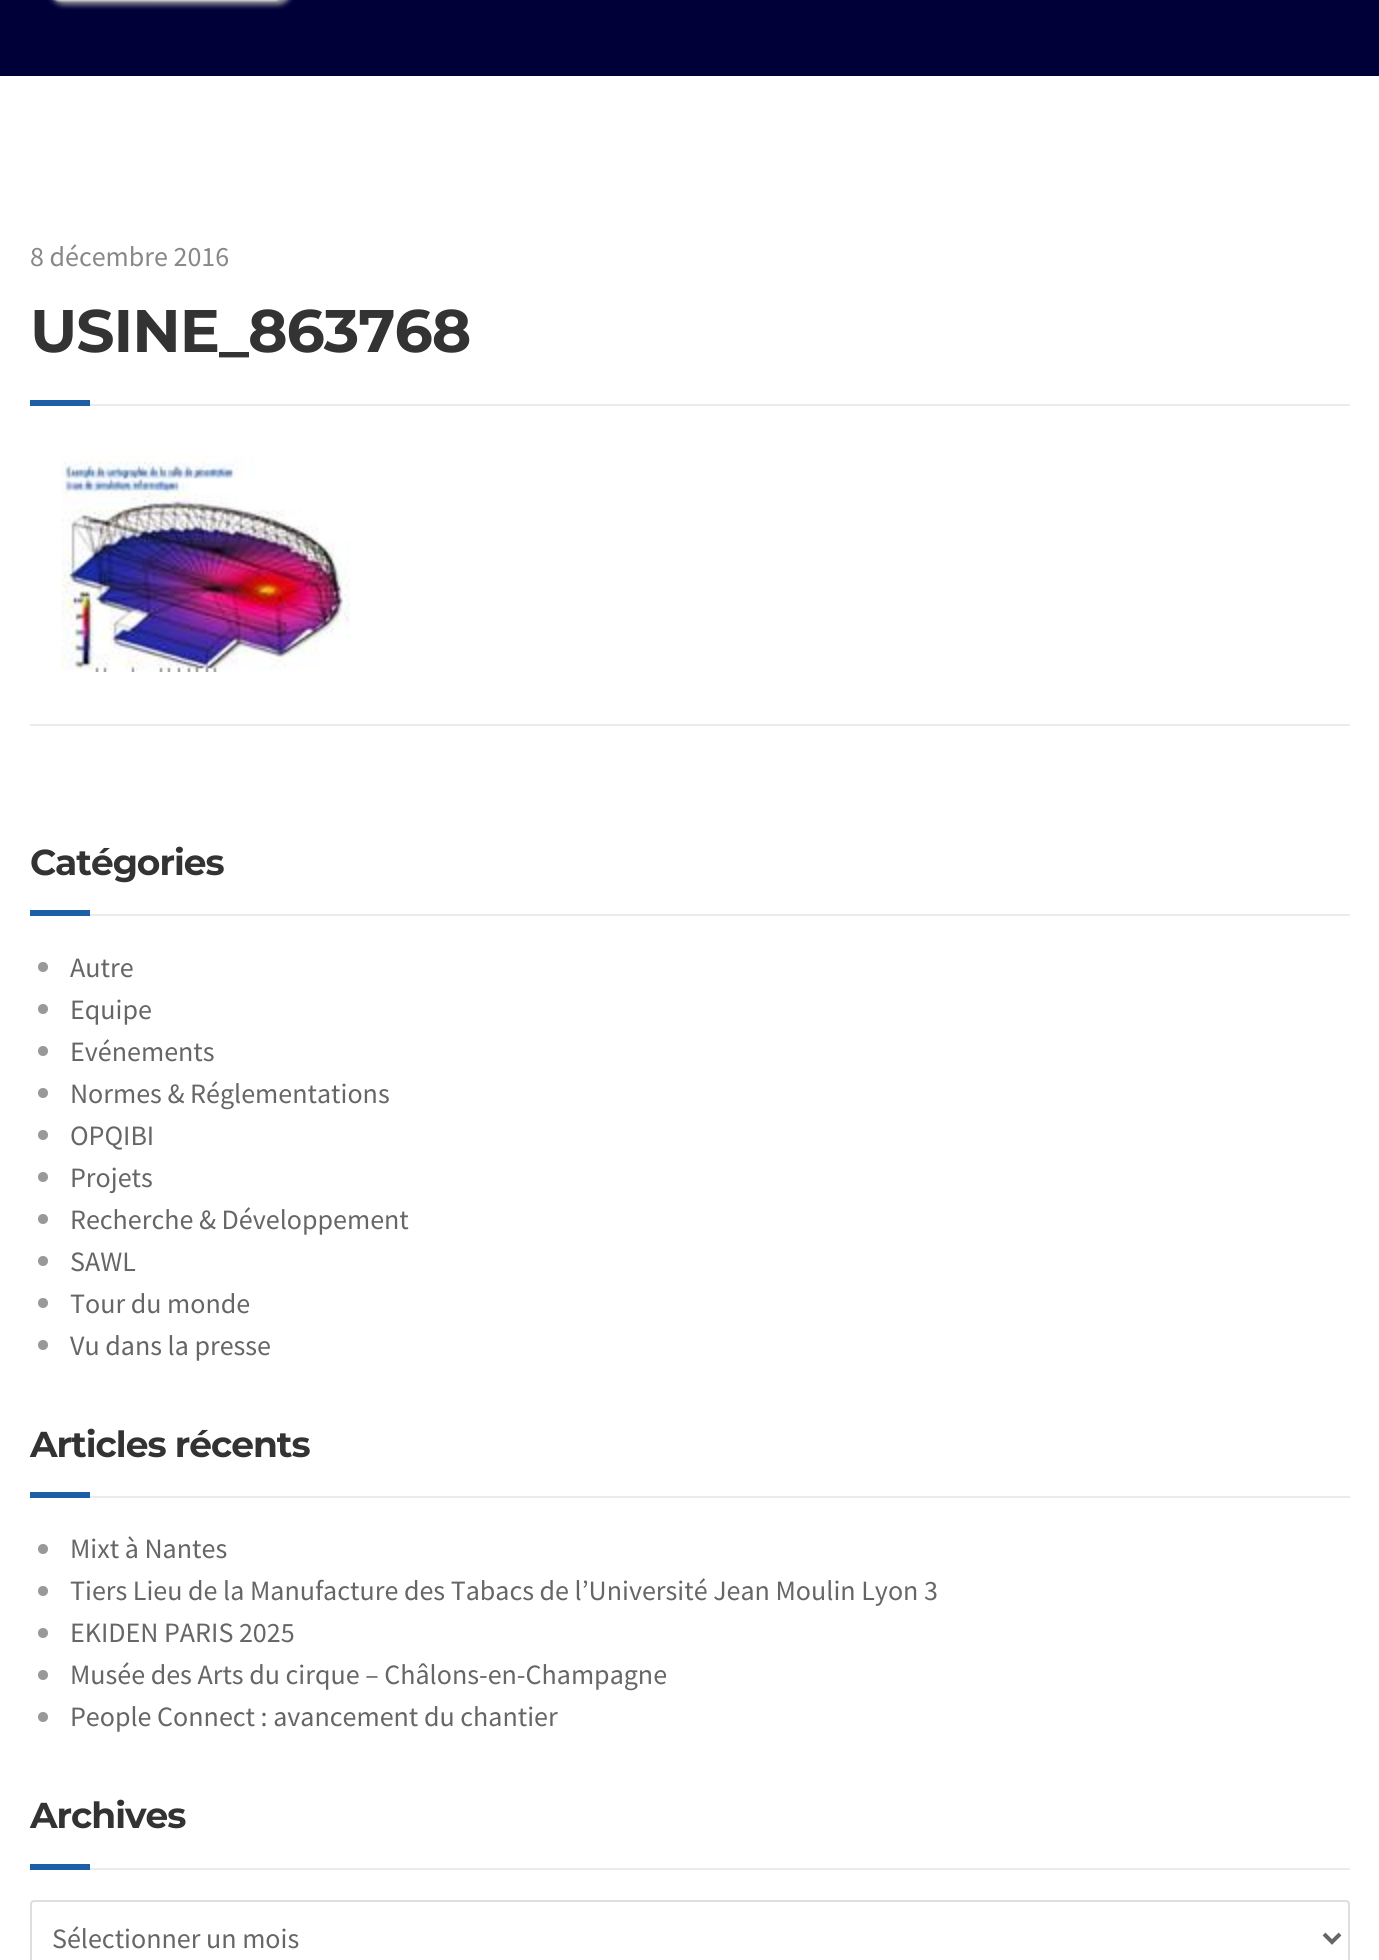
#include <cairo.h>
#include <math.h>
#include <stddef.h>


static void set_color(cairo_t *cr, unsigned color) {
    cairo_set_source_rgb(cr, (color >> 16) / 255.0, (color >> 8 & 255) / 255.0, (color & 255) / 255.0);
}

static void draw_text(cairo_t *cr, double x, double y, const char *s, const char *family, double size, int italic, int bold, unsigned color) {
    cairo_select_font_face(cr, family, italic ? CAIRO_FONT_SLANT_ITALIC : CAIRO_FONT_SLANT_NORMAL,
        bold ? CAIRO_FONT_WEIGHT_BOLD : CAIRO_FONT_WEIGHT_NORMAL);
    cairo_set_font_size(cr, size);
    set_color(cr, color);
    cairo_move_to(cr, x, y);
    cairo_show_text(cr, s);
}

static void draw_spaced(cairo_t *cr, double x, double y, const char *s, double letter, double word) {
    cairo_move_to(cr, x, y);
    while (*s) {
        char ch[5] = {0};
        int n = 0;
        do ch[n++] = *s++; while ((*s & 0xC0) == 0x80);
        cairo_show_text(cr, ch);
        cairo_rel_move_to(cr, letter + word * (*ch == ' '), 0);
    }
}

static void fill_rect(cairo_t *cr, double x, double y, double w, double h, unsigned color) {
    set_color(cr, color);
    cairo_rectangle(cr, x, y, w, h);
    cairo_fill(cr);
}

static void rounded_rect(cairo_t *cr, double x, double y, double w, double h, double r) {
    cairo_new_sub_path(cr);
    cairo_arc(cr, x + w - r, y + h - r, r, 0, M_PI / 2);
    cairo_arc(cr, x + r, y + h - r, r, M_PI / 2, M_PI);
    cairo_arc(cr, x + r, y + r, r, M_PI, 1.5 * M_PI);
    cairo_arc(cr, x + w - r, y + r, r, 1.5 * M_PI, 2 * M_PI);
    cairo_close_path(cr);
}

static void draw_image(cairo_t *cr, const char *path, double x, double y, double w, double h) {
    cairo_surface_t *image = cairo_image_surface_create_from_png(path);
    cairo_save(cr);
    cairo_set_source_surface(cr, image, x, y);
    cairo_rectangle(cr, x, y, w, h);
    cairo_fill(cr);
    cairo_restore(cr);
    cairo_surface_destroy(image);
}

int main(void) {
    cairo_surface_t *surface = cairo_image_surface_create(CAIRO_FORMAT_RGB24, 1379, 1960);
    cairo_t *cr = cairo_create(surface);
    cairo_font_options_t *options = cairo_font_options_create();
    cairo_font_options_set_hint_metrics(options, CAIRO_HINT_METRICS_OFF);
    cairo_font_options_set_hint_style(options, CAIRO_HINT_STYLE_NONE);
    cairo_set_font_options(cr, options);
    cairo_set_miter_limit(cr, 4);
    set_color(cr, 0xFFFFFF);
    cairo_paint(cr);
    fill_rect(cr, 0, 0, 1379, 76, 0x000038);
    draw_image(cr, "assets/img1.png", 48, 0, 245, 10);
    draw_text(cr, 30, 266, "8 décembre 2016", "Source Sans Pro", 28, 0, 0, 0x888888);
    fill_rect(cr, 90, 404, 1260, 2, 0xEBEBEB);
    cairo_select_font_face(cr, "Montserrat Thin", CAIRO_FONT_SLANT_NORMAL, CAIRO_FONT_WEIGHT_NORMAL);
    cairo_set_font_size(cr, 60);
    set_color(cr, 0x333333);
    draw_spaced(cr, 30, 352, "USINE_863768", -1, 0);
    fill_rect(cr, 30, 400, 60, 6, 0x1C5FA6);
    fill_rect(cr, 30, 724, 1320, 2, 0xEBEBEB);
    draw_image(cr, "assets/img2.png", 61, 455, 289, 217);
    fill_rect(cr, 90, 914, 1260, 2, 0xEBEBEB);
    cairo_set_font_size(cr, 36);
    set_color(cr, 0x333333);
    draw_spaced(cr, 30, 875, "Catégories", -1, 0);
    fill_rect(cr, 30, 910, 60, 6, 0x1C5FA6);
    set_color(cr, 0x999999);
    cairo_new_path(cr);
    cairo_arc(cr, 43, 967, 5, 0, 2 * M_PI);
    cairo_fill(cr);
    draw_text(cr, 70, 977, "Autre", "Source Sans Pro", 28, 0, 0, 0x666666);
    set_color(cr, 0x999999);
    cairo_new_path(cr);
    cairo_arc(cr, 43, 1009, 5, 0, 2 * M_PI);
    cairo_fill(cr);
    draw_text(cr, 70, 1019, "Equipe", "Source Sans Pro", 28, 0, 0, 0x666666);
    set_color(cr, 0x999999);
    cairo_new_path(cr);
    cairo_arc(cr, 43, 1051, 5, 0, 2 * M_PI);
    cairo_fill(cr);
    draw_text(cr, 70, 1061, "Evénements", "Source Sans Pro", 28, 0, 0, 0x666666);
    set_color(cr, 0x999999);
    cairo_new_path(cr);
    cairo_arc(cr, 43, 1093, 5, 0, 2 * M_PI);
    cairo_fill(cr);
    draw_text(cr, 70, 1103, "Normes & Réglementations", "Source Sans Pro", 28, 0, 0, 0x666666);
    set_color(cr, 0x999999);
    cairo_new_path(cr);
    cairo_arc(cr, 43, 1135, 5, 0, 2 * M_PI);
    cairo_fill(cr);
    draw_text(cr, 70, 1145, "OPQIBI", "Source Sans Pro", 28, 0, 0, 0x666666);
    set_color(cr, 0x999999);
    cairo_new_path(cr);
    cairo_arc(cr, 43, 1177, 5, 0, 2 * M_PI);
    cairo_fill(cr);
    draw_text(cr, 70, 1187, "Projets", "Source Sans Pro", 28, 0, 0, 0x666666);
    set_color(cr, 0x999999);
    cairo_new_path(cr);
    cairo_arc(cr, 43, 1219, 5, 0, 2 * M_PI);
    cairo_fill(cr);
    draw_text(cr, 70, 1229, "Recherche & Développement", "Source Sans Pro", 28, 0, 0, 0x666666);
    set_color(cr, 0x999999);
    cairo_new_path(cr);
    cairo_arc(cr, 43, 1261, 5, 0, 2 * M_PI);
    cairo_fill(cr);
    draw_text(cr, 70, 1271, "SAWL", "Source Sans Pro", 28, 0, 0, 0x666666);
    set_color(cr, 0x999999);
    cairo_new_path(cr);
    cairo_arc(cr, 43, 1303, 5, 0, 2 * M_PI);
    cairo_fill(cr);
    draw_text(cr, 70, 1313, "Tour du monde", "Source Sans Pro", 28, 0, 0, 0x666666);
    set_color(cr, 0x999999);
    cairo_new_path(cr);
    cairo_arc(cr, 43, 1345, 5, 0, 2 * M_PI);
    cairo_fill(cr);
    draw_text(cr, 70, 1355, "Vu dans la presse", "Source Sans Pro", 28, 0, 0, 0x666666);
    fill_rect(cr, 90, 1496, 1260, 2, 0xEBEBEB);
    cairo_select_font_face(cr, "Montserrat Thin", CAIRO_FONT_SLANT_NORMAL, CAIRO_FONT_WEIGHT_NORMAL);
    cairo_set_font_size(cr, 36);
    set_color(cr, 0x333333);
    draw_spaced(cr, 30, 1457, "Articles récents", -1, 0);
    fill_rect(cr, 30, 1492, 60, 6, 0x1C5FA6);
    set_color(cr, 0x999999);
    cairo_new_path(cr);
    cairo_arc(cr, 43, 1549, 5, 0, 2 * M_PI);
    cairo_fill(cr);
    draw_text(cr, 70, 1558, "Mixt à Nantes", "Source Sans Pro", 28, 0, 0, 0x666666);
    set_color(cr, 0x999999);
    cairo_new_path(cr);
    cairo_arc(cr, 43, 1591, 5, 0, 2 * M_PI);
    cairo_fill(cr);
    draw_text(cr, 70, 1600, "Tiers Lieu de la Manufacture des Tabacs de l’Université Jean Moulin Lyon 3", "Source Sans Pro", 28, 0, 0, 0x666666);
    set_color(cr, 0x999999);
    cairo_new_path(cr);
    cairo_arc(cr, 43, 1633, 5, 0, 2 * M_PI);
    cairo_fill(cr);
    draw_text(cr, 70, 1642, "EKIDEN PARIS 2025", "Source Sans Pro", 28, 0, 0, 0x666666);
    set_color(cr, 0x999999);
    cairo_new_path(cr);
    cairo_arc(cr, 43, 1675, 5, 0, 2 * M_PI);
    cairo_fill(cr);
    draw_text(cr, 70, 1684, "Musée des Arts du cirque – Châlons-en-Champagne", "Source Sans Pro", 28, 0, 0, 0x666666);
    set_color(cr, 0x999999);
    cairo_new_path(cr);
    cairo_arc(cr, 43, 1717, 5, 0, 2 * M_PI);
    cairo_fill(cr);
    draw_text(cr, 70, 1726, "People Connect : avancement du chantier", "Source Sans Pro", 28, 0, 0, 0x666666);
    fill_rect(cr, 90, 1868, 1260, 2, 0xEBEBEB);
    cairo_select_font_face(cr, "Montserrat Thin", CAIRO_FONT_SLANT_NORMAL, CAIRO_FONT_WEIGHT_NORMAL);
    cairo_set_font_size(cr, 36);
    set_color(cr, 0x333333);
    draw_spaced(cr, 30, 1828, "Archives", -1, 0);
    fill_rect(cr, 30, 1864, 60, 6, 0x1C5FA6);
    rounded_rect(cr, 31, 1901, 1318, 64, 3);
    set_color(cr, 0xDEDEDE);
    cairo_stroke(cr);
    cairo_new_path(cr);
    cairo_move_to(cr, 1324, 1934);
    cairo_line_to(cr, 1332, 1942);
    cairo_line_to(cr, 1340, 1934);
    set_color(cr, 0x666666);
    cairo_set_line_width(cr, 4);
    cairo_stroke(cr);
    draw_text(cr, 52, 1948, "Sélectionner un mois", "Source Sans Pro", 28, 0, 0, 0x666666);
    cairo_surface_write_to_png(surface, "output.png");
    cairo_font_options_destroy(options);
    cairo_destroy(cr);
    cairo_surface_destroy(surface);
    return 0;
}
